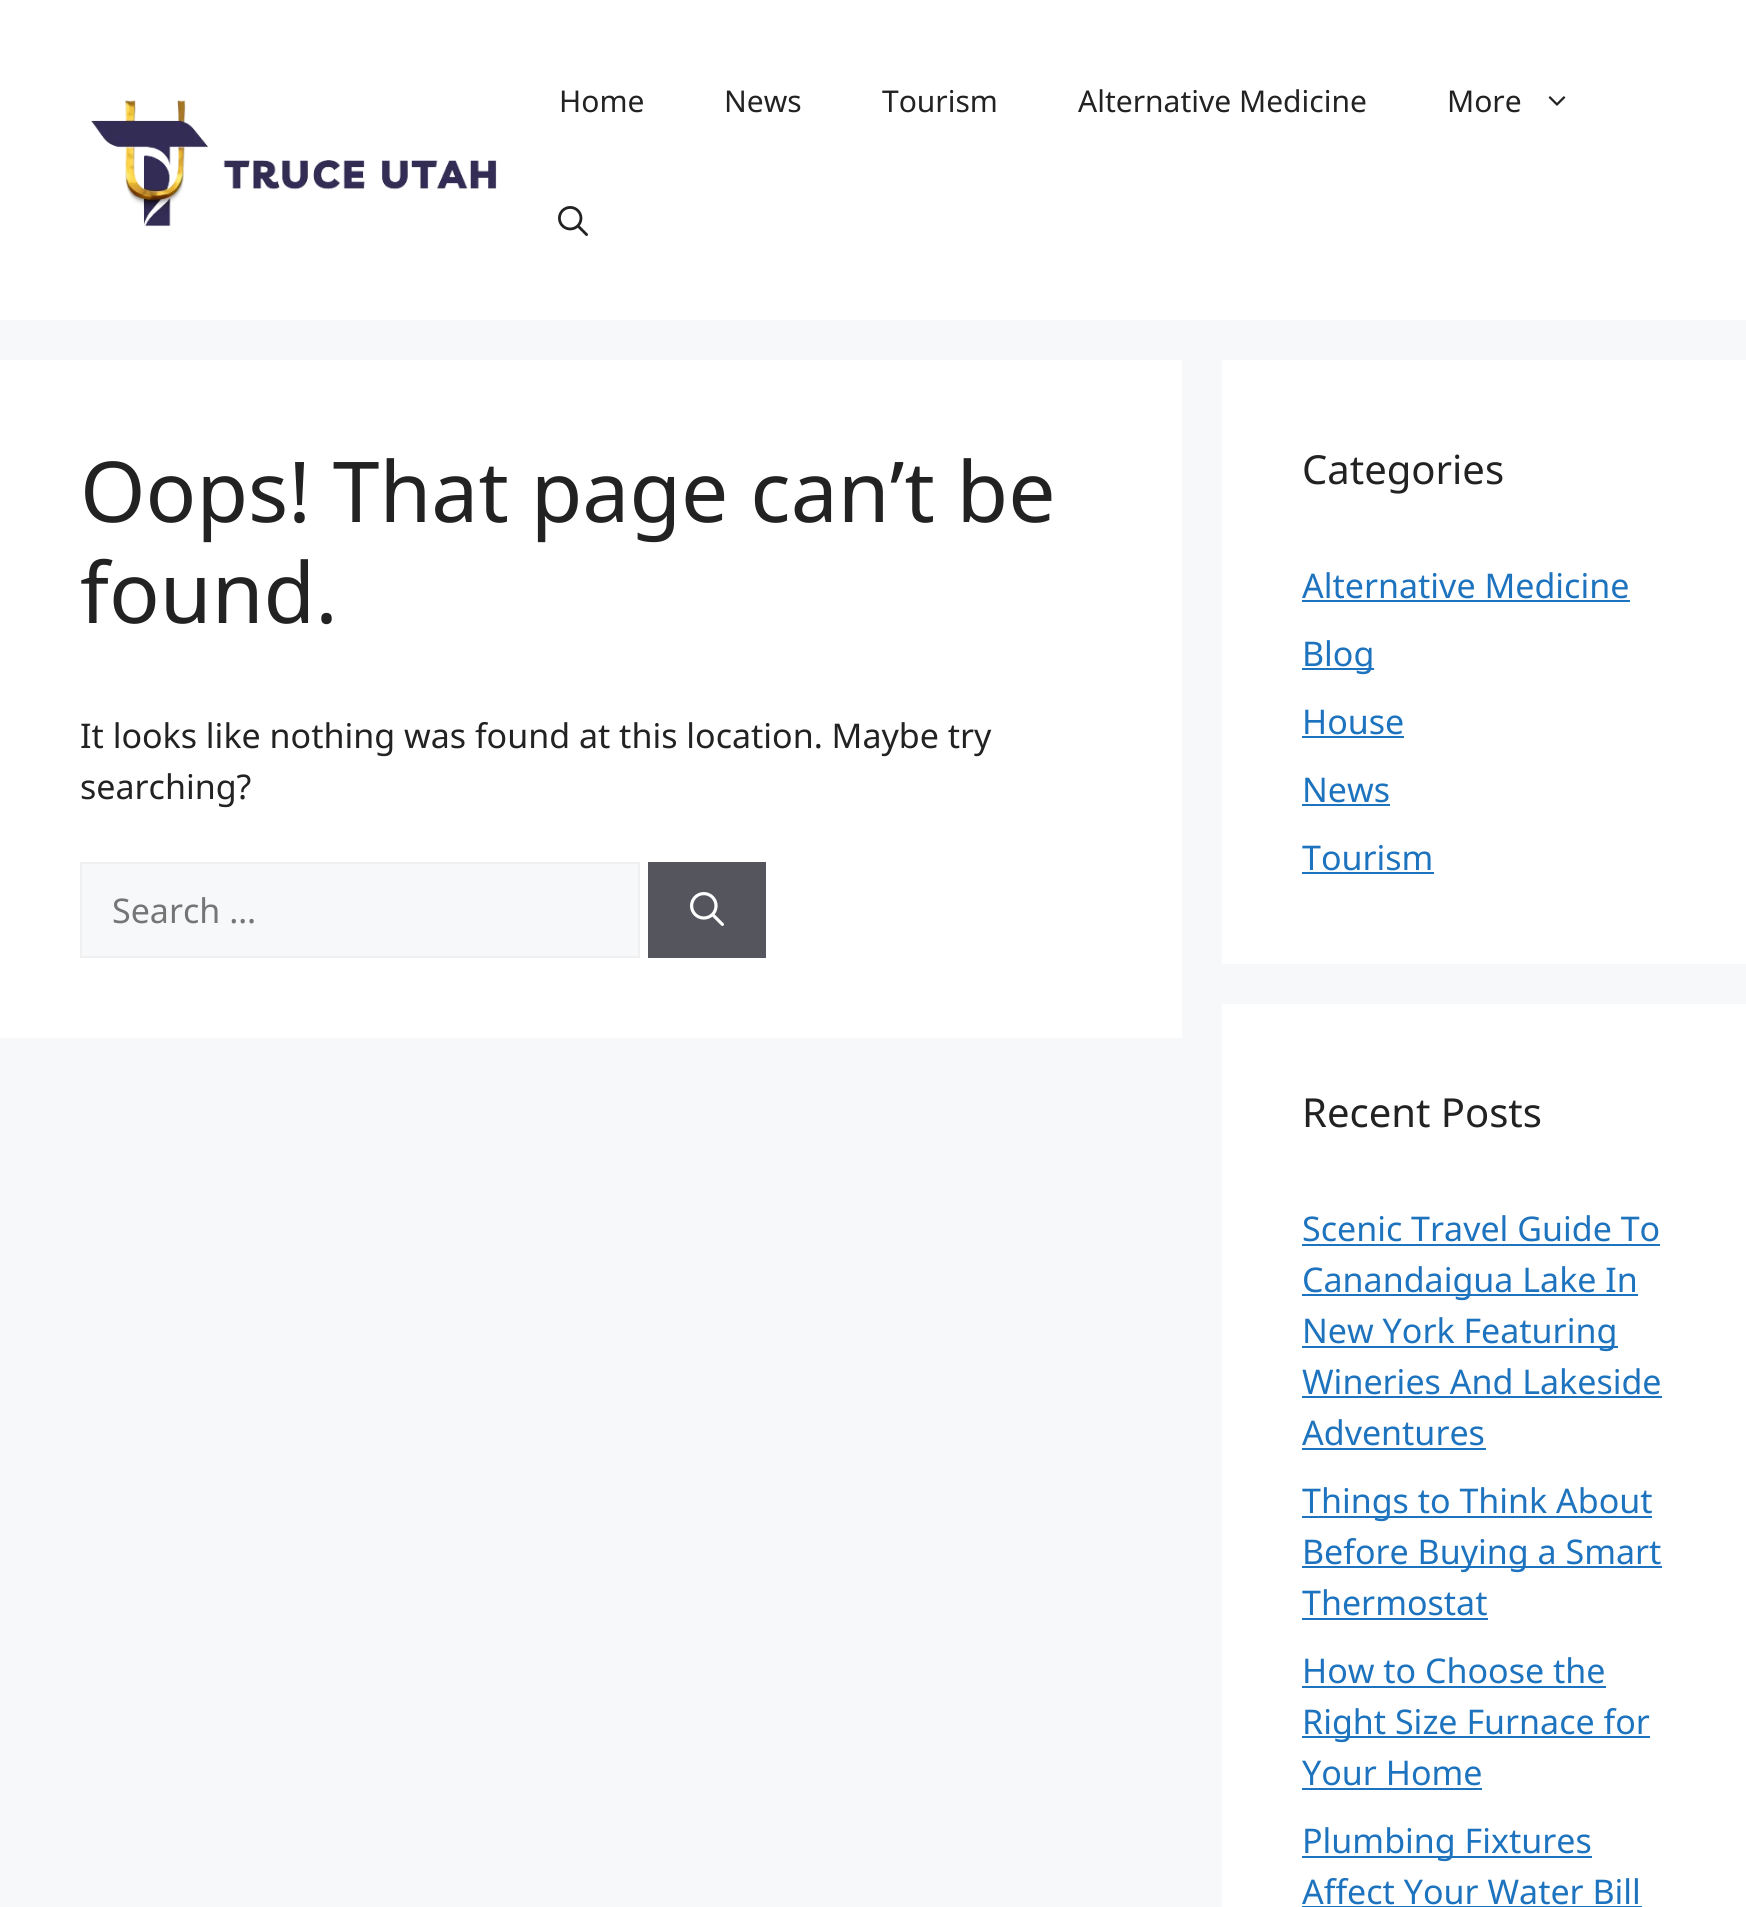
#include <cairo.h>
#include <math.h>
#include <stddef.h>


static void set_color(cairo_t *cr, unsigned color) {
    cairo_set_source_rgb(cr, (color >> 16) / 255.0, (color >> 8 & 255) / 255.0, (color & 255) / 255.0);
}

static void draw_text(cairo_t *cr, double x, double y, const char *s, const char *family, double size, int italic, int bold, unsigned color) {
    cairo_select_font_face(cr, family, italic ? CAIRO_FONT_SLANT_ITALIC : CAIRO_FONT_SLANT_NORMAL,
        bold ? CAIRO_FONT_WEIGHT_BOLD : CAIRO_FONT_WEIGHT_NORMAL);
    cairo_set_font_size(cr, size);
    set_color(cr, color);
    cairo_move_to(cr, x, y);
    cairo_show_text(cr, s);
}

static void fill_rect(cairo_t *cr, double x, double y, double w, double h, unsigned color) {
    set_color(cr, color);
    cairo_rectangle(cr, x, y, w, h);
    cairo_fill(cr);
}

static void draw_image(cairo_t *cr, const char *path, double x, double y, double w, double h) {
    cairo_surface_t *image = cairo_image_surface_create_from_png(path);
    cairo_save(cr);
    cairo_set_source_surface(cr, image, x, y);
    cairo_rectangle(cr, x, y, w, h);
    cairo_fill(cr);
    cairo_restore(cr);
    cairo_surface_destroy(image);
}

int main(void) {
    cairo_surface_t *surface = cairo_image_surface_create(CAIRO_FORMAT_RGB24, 1746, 1907);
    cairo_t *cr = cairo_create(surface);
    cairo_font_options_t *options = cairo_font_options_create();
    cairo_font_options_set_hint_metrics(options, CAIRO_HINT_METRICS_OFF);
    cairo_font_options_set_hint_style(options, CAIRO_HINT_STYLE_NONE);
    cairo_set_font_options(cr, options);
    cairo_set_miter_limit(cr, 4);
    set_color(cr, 0xF7F8F9);
    cairo_paint(cr);
    fill_rect(cr, 0, 0, 1746, 320, 0xFFFFFF);
    draw_image(cr, "assets/img1.png", 91, 100, 406, 127);
    draw_text(cr, 559, 112, "Home", "Noto Sans", 30, 0, 0, 0x222222);
    draw_text(cr, 724, 112, "News", "Noto Sans", 30, 0, 0, 0x222222);
    draw_text(cr, 882, 112, "Tourism", "Noto Sans", 30, 0, 0, 0x222222);
    draw_text(cr, 1078, 112, "Alternative Medicine", "Noto Sans", 30, 0, 0, 0x222222);
    draw_text(cr, 1447, 112, "More", "Noto Sans", 30, 0, 0, 0x222222);
    draw_image(cr, "assets/img2.png", 1548, 96, 18, 10);
    draw_image(cr, "assets/img3.png", 558, 206, 30, 30);
    fill_rect(cr, 0, 360, 1182, 678, 0xFFFFFF);
    draw_text(cr, 80, 522, "Oops! That page can’t be", "Noto Sans", 84, 0, 0, 0x222222);
    draw_text(cr, 80, 623, "found.", "Noto Sans", 84, 0, 0, 0x222222);
    draw_text(cr, 80, 748, "It looks like nothing was found at this location. Maybe try", "Noto Sans", 34, 0, 0, 0x222222);
    draw_text(cr, 80, 799, "searching?", "Noto Sans", 34, 0, 0, 0x222222);
    set_color(cr, 0xF7F8F9);
    cairo_rectangle(cr, 81, 863, 558, 94);
    cairo_fill_preserve(cr);
    set_color(cr, 0xF0F0F0);
    cairo_stroke(cr);
    draw_text(cr, 112, 923, "Search …", "Noto Sans", 34, 0, 0, 0x757575);
    fill_rect(cr, 648, 862, 118, 96, 0x55555E);
    draw_image(cr, "assets/img4.png", 690, 892, 34, 34);
    fill_rect(cr, 1222, 360, 524, 604, 0xFFFFFF);
    draw_text(cr, 1302, 484, "Categories", "Noto Sans", 40, 0, 0, 0x222222);
    draw_text(cr, 1302, 598, "Alternative Medicine", "Noto Sans", 34, 0, 0, 0x1E73BE);
    fill_rect(cr, 1302, 600, 328, 2, 0x1E73BE);
    fill_rect(cr, 1302, 668, 72, 2, 0x1E73BE);
    draw_text(cr, 1302, 666, "Blog", "Noto Sans", 34, 0, 0, 0x1E73BE);
    draw_text(cr, 1302, 734, "House", "Noto Sans", 34, 0, 0, 0x1E73BE);
    fill_rect(cr, 1302, 736, 102, 2, 0x1E73BE);
    draw_text(cr, 1302, 802, "News", "Noto Sans", 34, 0, 0, 0x1E73BE);
    fill_rect(cr, 1302, 804, 88, 2, 0x1E73BE);
    draw_text(cr, 1302, 870, "Tourism", "Noto Sans", 34, 0, 0, 0x1E73BE);
    fill_rect(cr, 1302, 872, 132, 2, 0x1E73BE);
    fill_rect(cr, 1222, 1004, 524, 903, 0xFFFFFF);
    draw_text(cr, 1302, 1127, "Recent Posts", "Noto Sans", 40, 0, 0, 0x222222);
    draw_text(cr, 1302, 1241, "Scenic Travel Guide To", "Noto Sans", 34, 0, 0, 0x1E73BE);
    fill_rect(cr, 1302, 1244, 358, 2, 0x1E73BE);
    fill_rect(cr, 1302, 1294, 336, 2, 0x1E73BE);
    draw_text(cr, 1302, 1292, "Canandaigua Lake In", "Noto Sans", 34, 0, 0, 0x1E73BE);
    fill_rect(cr, 1302, 1346, 316, 2, 0x1E73BE);
    draw_text(cr, 1302, 1343, "New York Featuring", "Noto Sans", 34, 0, 0, 0x1E73BE);
    draw_text(cr, 1302, 1394, "Wineries And Lakeside", "Noto Sans", 34, 0, 0, 0x1E73BE);
    fill_rect(cr, 1302, 1396, 360, 2, 0x1E73BE);
    draw_text(cr, 1302, 1445, "Adventures", "Noto Sans", 34, 0, 0, 0x1E73BE);
    fill_rect(cr, 1302, 1448, 184, 2, 0x1E73BE);
    fill_rect(cr, 1302, 1516, 350, 2, 0x1E73BE);
    draw_text(cr, 1302, 1513, "Things to Think About", "Noto Sans", 34, 0, 0, 0x1E73BE);
    fill_rect(cr, 1302, 1566, 360, 2, 0x1E73BE);
    draw_text(cr, 1302, 1564, "Before Buying a Smart", "Noto Sans", 34, 0, 0, 0x1E73BE);
    draw_text(cr, 1302, 1615, "Thermostat", "Noto Sans", 34, 0, 0, 0x1E73BE);
    fill_rect(cr, 1302, 1618, 186, 2, 0x1E73BE);
    draw_text(cr, 1302, 1683, "How to Choose the", "Noto Sans", 34, 0, 0, 0x1E73BE);
    fill_rect(cr, 1302, 1686, 304, 2, 0x1E73BE);
    fill_rect(cr, 1302, 1736, 348, 2, 0x1E73BE);
    draw_text(cr, 1302, 1734, "Right Size Furnace for", "Noto Sans", 34, 0, 0, 0x1E73BE);
    draw_text(cr, 1302, 1785, "Your Home", "Noto Sans", 34, 0, 0, 0x1E73BE);
    fill_rect(cr, 1302, 1788, 180, 2, 0x1E73BE);
    fill_rect(cr, 1302, 1856, 290, 2, 0x1E73BE);
    draw_text(cr, 1302, 1853, "Plumbing Fixtures", "Noto Sans", 34, 0, 0, 0x1E73BE);
    draw_text(cr, 1302, 1904, "Affect Your Water Bill", "Noto Sans", 34, 0, 0, 0x1E73BE);
    fill_rect(cr, 1302, 1906, 340, 1, 0x1E73BE);
    cairo_surface_write_to_png(surface, "output.png");
    cairo_font_options_destroy(options);
    cairo_destroy(cr);
    cairo_surface_destroy(surface);
    return 0;
}
